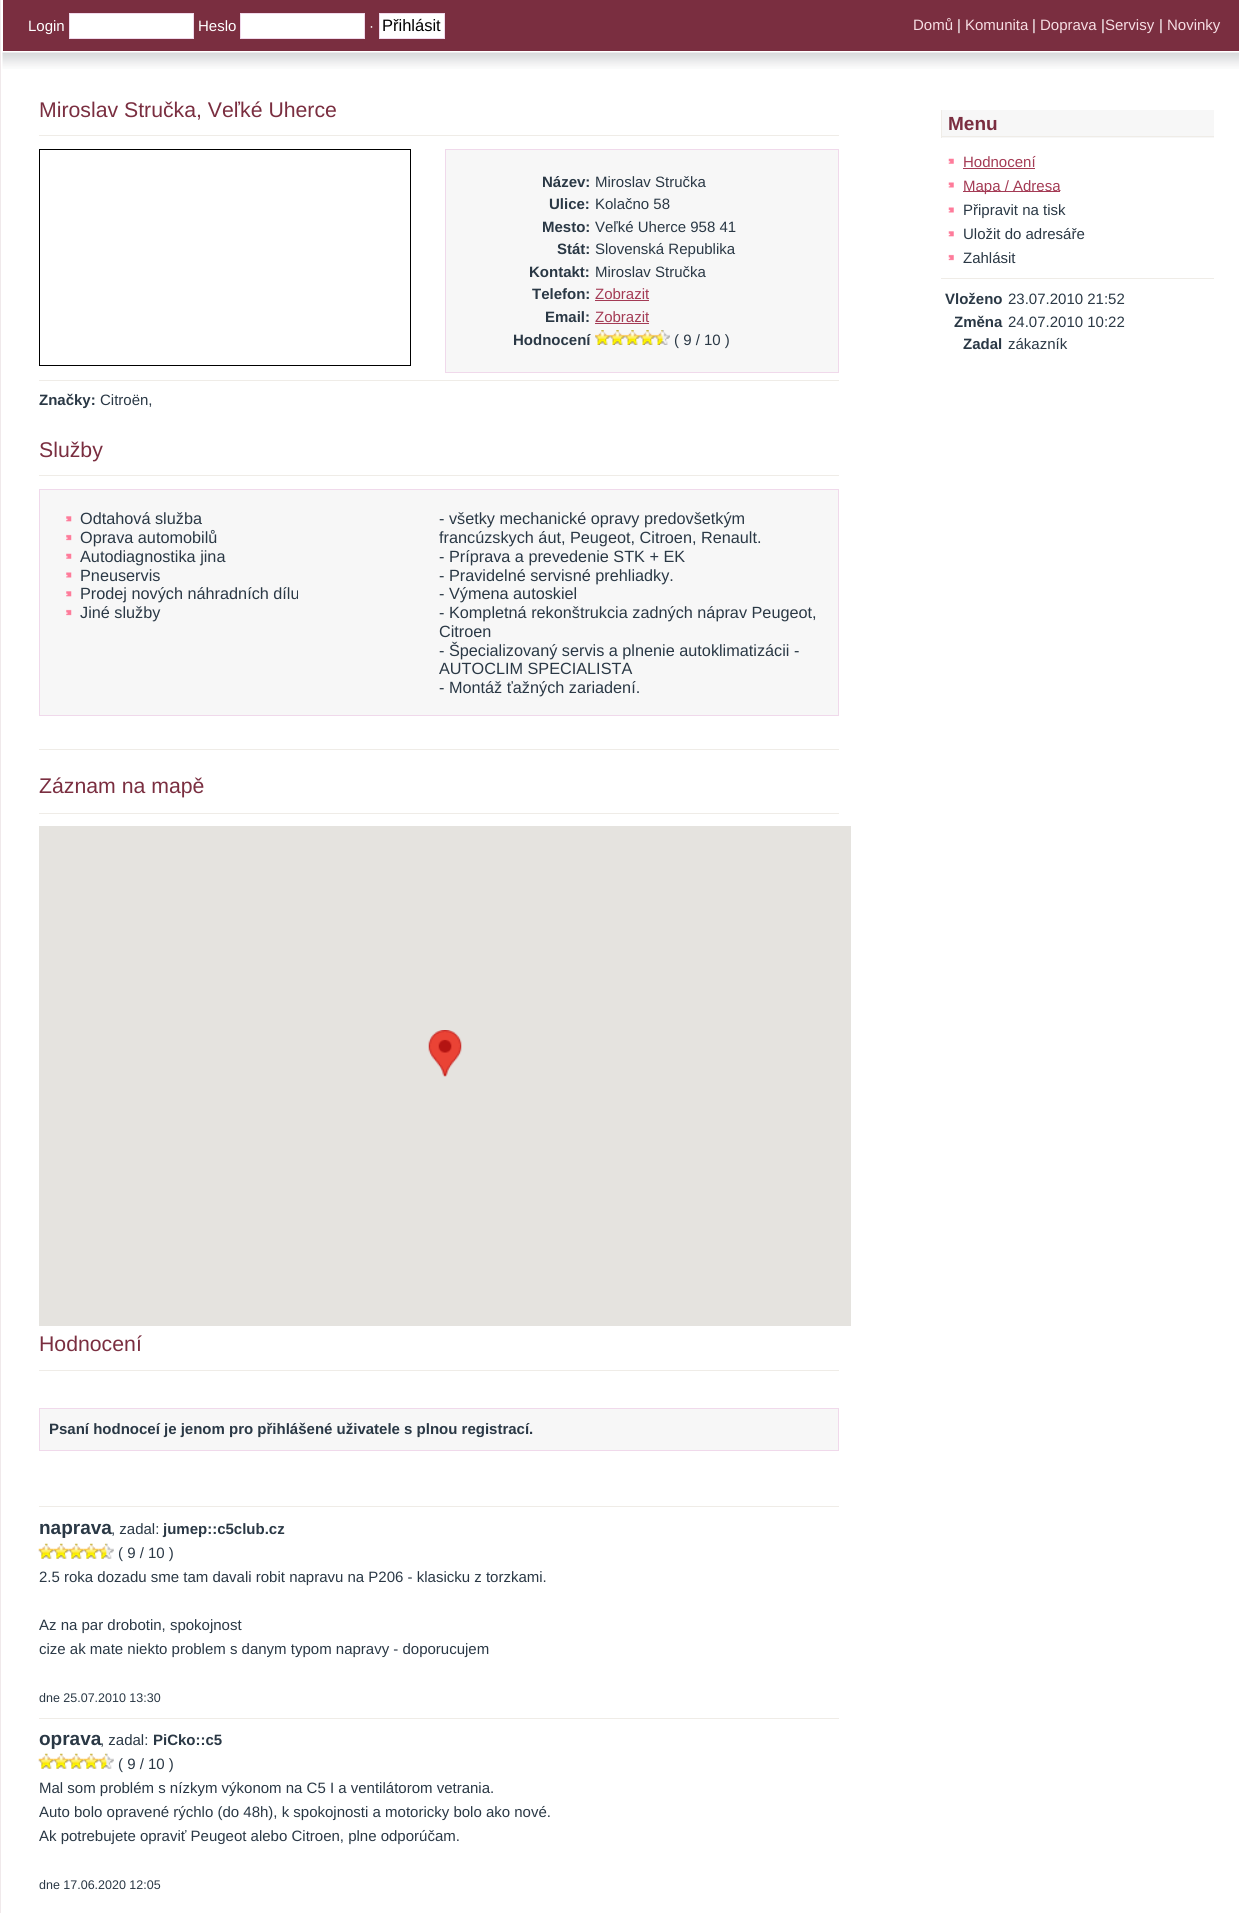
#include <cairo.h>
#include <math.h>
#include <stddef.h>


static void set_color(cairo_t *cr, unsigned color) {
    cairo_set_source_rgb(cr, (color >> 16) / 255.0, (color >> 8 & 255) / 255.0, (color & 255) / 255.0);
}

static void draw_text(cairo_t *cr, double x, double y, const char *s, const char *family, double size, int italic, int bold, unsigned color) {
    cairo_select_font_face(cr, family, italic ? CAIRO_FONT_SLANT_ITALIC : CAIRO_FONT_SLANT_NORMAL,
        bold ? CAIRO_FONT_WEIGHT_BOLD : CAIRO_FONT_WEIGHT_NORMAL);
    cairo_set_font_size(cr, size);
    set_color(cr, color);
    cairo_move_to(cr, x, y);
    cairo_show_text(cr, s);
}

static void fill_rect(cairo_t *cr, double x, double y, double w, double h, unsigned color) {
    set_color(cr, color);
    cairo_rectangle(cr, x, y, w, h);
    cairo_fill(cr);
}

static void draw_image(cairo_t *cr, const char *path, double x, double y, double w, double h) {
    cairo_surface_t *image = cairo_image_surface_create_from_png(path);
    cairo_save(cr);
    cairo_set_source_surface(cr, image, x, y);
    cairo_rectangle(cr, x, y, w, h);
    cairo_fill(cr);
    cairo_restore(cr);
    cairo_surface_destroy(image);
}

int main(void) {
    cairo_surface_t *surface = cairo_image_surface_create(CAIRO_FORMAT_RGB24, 1239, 1913);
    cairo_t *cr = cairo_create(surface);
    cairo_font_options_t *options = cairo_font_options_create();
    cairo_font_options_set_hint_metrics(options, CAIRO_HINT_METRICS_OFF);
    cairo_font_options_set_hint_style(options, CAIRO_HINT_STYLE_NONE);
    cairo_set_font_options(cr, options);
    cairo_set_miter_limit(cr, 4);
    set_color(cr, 0xFFFFFF);
    cairo_paint(cr);
    fill_rect(cr, 0, 0, 1, 1913, 0xF0E9EB);
    fill_rect(cr, 3, 0, 1236, 51, 0x7A2E40);
    draw_text(cr, 28, 31, "Login", "Liberation Sans", 15, 0, 0, 0xFFFFFF);
    cairo_rectangle(cr, 69.5, 13.5, 124, 25);
    cairo_fill_preserve(cr);
    set_color(cr, 0xF0D9EB);
    cairo_set_line_width(cr, 1);
    cairo_stroke(cr);
    draw_text(cr, 198, 31, "Heslo", "Liberation Sans", 15, 0, 0, 0xFFFFFF);
    cairo_rectangle(cr, 240.5, 13.5, 124, 25);
    cairo_fill_preserve(cr);
    set_color(cr, 0xF0D9EB);
    cairo_stroke(cr);
    draw_text(cr, 369, 31, "·", "Liberation Sans", 15, 0, 0, 0xFFFFFF);
    cairo_rectangle(cr, 379.5, 13.5, 65, 25);
    cairo_fill_preserve(cr);
    set_color(cr, 0xF0D9EB);
    cairo_stroke(cr);
    draw_text(cr, 382, 31, "Přihlásit", "Liberation Sans", 16.5, 0, 0, 0x000000);
    draw_text(cr, 913, 30, "Domů", "Liberation Sans", 15, 0, 0, 0xF6DDE3);
    draw_text(cr, 957, 30, "|", "Liberation Sans", 15, 0, 0, 0xFFFFFF);
    draw_text(cr, 965, 30, "Komunita", "Liberation Sans", 15, 0, 0, 0xF6DDE3);
    draw_text(cr, 1032, 30, "|", "Liberation Sans", 15, 0, 0, 0xFFFFFF);
    draw_text(cr, 1040, 30, "Doprava", "Liberation Sans", 15, 0, 0, 0xF6DDE3);
    draw_text(cr, 1101, 30, "|", "Liberation Sans", 15, 0, 0, 0xFFFFFF);
    draw_text(cr, 1105, 30, "Servisy", "Liberation Sans", 15, 0, 0, 0xF6DDE3);
    draw_text(cr, 1159, 30, "|", "Liberation Sans", 15, 0, 0, 0xFFFFFF);
    draw_text(cr, 1167, 30, "Novinky", "Liberation Sans", 15, 0, 0, 0xF6DDE3);
    draw_image(cr, "assets/img1.png", 2, 52, 1237, 17);
    fill_rect(cr, 39, 135, 800, 1, 0xEFECE7);
    draw_text(cr, 39, 117, "Miroslav Stručka, Veľké Uherce", "Liberation Sans", 21.25, 0, 0, 0x7A2E40);
    cairo_rectangle(cr, 39.5, 149.5, 371, 216);
    set_color(cr, 0x000000);
    cairo_stroke(cr);
    set_color(cr, 0xF7F7F7);
    cairo_rectangle(cr, 445.5, 149.5, 393, 223);
    cairo_fill_preserve(cr);
    set_color(cr, 0xF0D9EB);
    cairo_stroke(cr);
    draw_text(cr, 542, 187, "Název:", "Liberation Sans", 15, 0, 1, 0x2A3845);
    draw_text(cr, 595, 187, "Miroslav Stručka", "Liberation Sans", 15, 0, 0, 0x2A3845);
    draw_text(cr, 549, 209, "Ulice:", "Liberation Sans", 15, 0, 1, 0x2A3845);
    draw_text(cr, 595, 209, "Kolačno 58", "Liberation Sans", 15, 0, 0, 0x2A3845);
    draw_text(cr, 542, 232, "Mesto:", "Liberation Sans", 15, 0, 1, 0x2A3845);
    draw_text(cr, 595, 232, "Veľké Uherce 958 41", "Liberation Sans", 15, 0, 0, 0x2A3845);
    draw_text(cr, 557, 254, "Stát:", "Liberation Sans", 15, 0, 1, 0x2A3845);
    draw_text(cr, 595, 254, "Slovenská Republika", "Liberation Sans", 15, 0, 0, 0x2A3845);
    draw_text(cr, 529, 277, "Kontakt:", "Liberation Sans", 15, 0, 1, 0x2A3845);
    draw_text(cr, 595, 277, "Miroslav Stručka", "Liberation Sans", 15, 0, 0, 0x2A3845);
    draw_text(cr, 532, 299, "Telefon:", "Liberation Sans", 15, 0, 1, 0x2A3845);
    draw_text(cr, 595, 299, "Zobrazit", "Liberation Sans", 15, 0, 0, 0xA43B55);
    fill_rect(cr, 595, 300, 54, 1, 0xA43B55);
    draw_text(cr, 545, 322, "Email:", "Liberation Sans", 15, 0, 1, 0x2A3845);
    draw_text(cr, 595, 322, "Zobrazit", "Liberation Sans", 15, 0, 0, 0xA43B55);
    fill_rect(cr, 595, 323, 54, 1, 0xA43B55);
    draw_text(cr, 513, 345, "Hodnocení", "Liberation Sans", 15, 0, 1, 0x2A3845);
    draw_image(cr, "assets/img2.png", 595, 330, 15, 15);
    draw_image(cr, "assets/img2.png", 610, 330, 15, 15);
    draw_image(cr, "assets/img2.png", 625, 330, 15, 15);
    draw_image(cr, "assets/img2.png", 640, 330, 15, 15);
    draw_image(cr, "assets/img3.png", 655, 330, 15, 15);
    draw_text(cr, 674, 345, "( 9 / 10 )", "Liberation Sans", 15, 0, 0, 0x2A3845);
    fill_rect(cr, 39, 380, 800, 1, 0xEFECE7);
    draw_text(cr, 39, 405, "Značky:", "Liberation Sans", 15, 0, 1, 0x2A3845);
    draw_text(cr, 100, 405, "Citroën,", "Liberation Sans", 15, 0, 0, 0x2A3845);
    fill_rect(cr, 39, 475, 800, 1, 0xEFECE7);
    draw_text(cr, 39, 457, "Služby", "Liberation Sans", 21.25, 0, 0, 0x7A2E40);
    set_color(cr, 0xF7F7F7);
    cairo_rectangle(cr, 39.5, 489.5, 799, 226);
    cairo_fill_preserve(cr);
    set_color(cr, 0xF0D9EB);
    cairo_stroke(cr);
    draw_image(cr, "assets/img4.png", 66, 516, 6, 6);
    draw_text(cr, 80, 524, "Odtahová služba", "Liberation Sans", 16.25, 0, 0, 0x2A3845);
    draw_image(cr, "assets/img5.png", 66, 534, 6, 7);
    draw_text(cr, 80, 543, "Oprava automobilů", "Liberation Sans", 16.25, 0, 0, 0x2A3845);
    draw_image(cr, "assets/img6.png", 66, 553, 6, 6);
    draw_text(cr, 80, 562, "Autodiagnostika jina", "Liberation Sans", 16.25, 0, 0, 0x2A3845);
    draw_image(cr, "assets/img7.png", 66, 572, 6, 6);
    draw_text(cr, 80, 581, "Pneuservis", "Liberation Sans", 16.25, 0, 0, 0x2A3845);
    draw_image(cr, "assets/img4.png", 66, 591, 6, 6);
    draw_text(cr, 80, 599, "Prodej nových náhradních dílu", "Liberation Sans", 16.25, 0, 0, 0x2A3845);
    draw_image(cr, "assets/img5.png", 66, 609, 6, 7);
    draw_text(cr, 80, 618, "Jiné služby", "Liberation Sans", 16.25, 0, 0, 0x2A3845);
    draw_text(cr, 439, 524, "- všetky mechanické opravy predovšetkým", "Liberation Sans", 16.25, 0, 0, 0x2A3845);
    draw_text(cr, 439, 543, "francúzskych áut, Peugeot, Citroen, Renault.", "Liberation Sans", 16.25, 0, 0, 0x2A3845);
    draw_text(cr, 439, 562, "- Príprava a prevedenie STK + EK", "Liberation Sans", 16.25, 0, 0, 0x2A3845);
    draw_text(cr, 439, 581, "- Pravidelné servisné prehliadky.", "Liberation Sans", 16.25, 0, 0, 0x2A3845);
    draw_text(cr, 439, 599, "- Výmena autoskiel", "Liberation Sans", 16.25, 0, 0, 0x2A3845);
    draw_text(cr, 439, 618, "- Kompletná rekonštrukcia zadných náprav Peugeot,", "Liberation Sans", 16.25, 0, 0, 0x2A3845);
    draw_text(cr, 439, 637, "Citroen", "Liberation Sans", 16.25, 0, 0, 0x2A3845);
    draw_text(cr, 439, 656, "- Špecializovaný servis a plnenie autoklimatizácii -", "Liberation Sans", 16.25, 0, 0, 0x2A3845);
    draw_text(cr, 439, 674, "AUTOCLIM SPECIALISTA", "Liberation Sans", 16.25, 0, 0, 0x2A3845);
    draw_text(cr, 439, 693, "- Montáž ťažných zariadení.", "Liberation Sans", 16.25, 0, 0, 0x2A3845);
    fill_rect(cr, 39, 749, 800, 1, 0xEFECE7);
    fill_rect(cr, 39, 813, 800, 1, 0xEFECE7);
    draw_text(cr, 39, 793, "Záznam na mapě", "Liberation Sans", 21.25, 0, 0, 0x7A2E40);
    fill_rect(cr, 39, 826, 812, 500, 0xE5E3DF);
    draw_image(cr, "assets/img8.png", 428, 1030, 34, 47);
    fill_rect(cr, 39, 1370, 800, 1, 0xEFECE7);
    draw_text(cr, 39, 1351, "Hodnocení", "Liberation Sans", 21.25, 0, 0, 0x7A2E40);
    set_color(cr, 0xF7F7F7);
    cairo_rectangle(cr, 39.5, 1408.5, 799, 42);
    cairo_fill_preserve(cr);
    set_color(cr, 0xF0D9EB);
    cairo_stroke(cr);
    draw_text(cr, 49, 1434, "Psaní hodnoceí je jenom pro přihlášené uživatele s plnou registrací.", "Liberation Sans", 15, 0, 1, 0x2A3845);
    fill_rect(cr, 39, 1506, 800, 1, 0xEFECE7);
    draw_text(cr, 39, 1534, "naprava", "Liberation Sans", 19, 0, 1, 0x2A3845);
    draw_text(cr, 111, 1534, ", zadal:", "Liberation Sans", 15, 0, 0, 0x2A3845);
    draw_text(cr, 163, 1534, "jumep::c5club.cz", "Liberation Sans", 15, 0, 1, 0x2A3845);
    draw_image(cr, "assets/img9.png", 38, 1543, 16, 16);
    draw_image(cr, "assets/img10.png", 53, 1543, 16, 16);
    draw_image(cr, "assets/img10.png", 68, 1543, 16, 16);
    draw_image(cr, "assets/img11.png", 83, 1543, 16, 16);
    draw_image(cr, "assets/img12.png", 98, 1543, 16, 16);
    draw_text(cr, 118, 1558, "( 9 / 10 )", "Liberation Sans", 15, 0, 0, 0x2A3845);
    draw_text(cr, 39, 1582, "2.5 roka dozadu sme tam davali robit napravu na P206 - klasicku z torzkami.", "Liberation Sans", 15, 0, 0, 0x2A3845);
    draw_text(cr, 39, 1630, "Az na par drobotin, spokojnost", "Liberation Sans", 15, 0, 0, 0x2A3845);
    draw_text(cr, 39, 1654, "cize ak mate niekto problem s danym typom napravy - doporucujem", "Liberation Sans", 15, 0, 0, 0x2A3845);
    draw_text(cr, 39, 1702, "dne 25.07.2010 13:30", "Liberation Sans", 12.5, 0, 0, 0x2A3845);
    fill_rect(cr, 39, 1718, 800, 1, 0xEFECE7);
    draw_text(cr, 39, 1745, "oprava", "Liberation Sans", 19, 0, 1, 0x2A3845);
    draw_text(cr, 100, 1745, ", zadal:", "Liberation Sans", 15, 0, 0, 0x2A3845);
    draw_text(cr, 153, 1745, "PiCko::c5", "Liberation Sans", 15, 0, 1, 0x2A3845);
    draw_image(cr, "assets/img9.png", 38, 1753, 16, 16);
    draw_image(cr, "assets/img10.png", 53, 1753, 16, 16);
    draw_image(cr, "assets/img10.png", 68, 1753, 16, 16);
    draw_image(cr, "assets/img11.png", 83, 1753, 16, 16);
    draw_image(cr, "assets/img12.png", 98, 1753, 16, 16);
    draw_text(cr, 118, 1769, "( 9 / 10 )", "Liberation Sans", 15, 0, 0, 0x2A3845);
    draw_text(cr, 39, 1793, "Mal som problém s nízkym výkonom na C5 I a ventilátorom vetrania.", "Liberation Sans", 15, 0, 0, 0x2A3845);
    draw_text(cr, 39, 1817, "Auto bolo opravené rýchlo (do 48h), k spokojnosti a motoricky bolo ako nové.", "Liberation Sans", 15, 0, 0, 0x2A3845);
    draw_text(cr, 39, 1841, "Ak potrebujete opraviť Peugeot alebo Citroen, plne odporúčam.", "Liberation Sans", 15, 0, 0, 0x2A3845);
    draw_text(cr, 39, 1889, "dne 17.06.2020 12:05", "Liberation Sans", 12.5, 0, 0, 0x2A3845);
    fill_rect(cr, 942, 110, 272, 28, 0xF7F7F7);
    fill_rect(cr, 941, 136, 273, 1, 0xEFECE7);
    fill_rect(cr, 941, 110, 1, 28, 0xEFECE7);
    draw_text(cr, 948, 130, "Menu", "Liberation Sans", 19, 0, 1, 0x7A2E40);
    draw_image(cr, "assets/img13.png", 948, 158, 6, 6);
    draw_text(cr, 963, 167, "Hodnocení", "Liberation Sans", 15, 0, 0, 0xA43B55);
    fill_rect(cr, 963, 168, 72, 1, 0xA43B55);
    draw_image(cr, "assets/img14.png", 948, 182, 6, 6);
    fill_rect(cr, 963, 191, 97, 1, 0xA43B55);
    draw_text(cr, 963, 191, "Mapa / Adresa", "Liberation Sans", 15, 0, 0, 0xA43B55);
    draw_image(cr, "assets/img14.png", 948, 207, 6, 6);
    draw_text(cr, 963, 215, "Připravit na tisk", "Liberation Sans", 15, 0, 0, 0x2A3845);
    draw_image(cr, "assets/img15.png", 948, 231, 6, 6);
    draw_text(cr, 963, 239, "Uložit do adresáře", "Liberation Sans", 15, 0, 0, 0x2A3845);
    draw_image(cr, "assets/img16.png", 948, 254, 6, 7);
    draw_text(cr, 963, 263, "Zahlásit", "Liberation Sans", 15, 0, 0, 0x2A3845);
    fill_rect(cr, 941, 278, 273, 1, 0xEFECE7);
    draw_text(cr, 945, 304, "Vloženo", "Liberation Sans", 15, 0, 1, 0x2A3845);
    draw_text(cr, 1008, 304, "23.07.2010 21:52", "Liberation Sans", 15, 0, 0, 0x2A3845);
    draw_text(cr, 954, 327, "Změna", "Liberation Sans", 15, 0, 1, 0x2A3845);
    draw_text(cr, 1008, 327, "24.07.2010 10:22", "Liberation Sans", 15, 0, 0, 0x2A3845);
    draw_text(cr, 963, 349, "Zadal", "Liberation Sans", 15, 0, 1, 0x2A3845);
    draw_text(cr, 1008, 349, "zákazník", "Liberation Sans", 15, 0, 0, 0x2A3845);
    cairo_surface_write_to_png(surface, "output.png");
    cairo_font_options_destroy(options);
    cairo_destroy(cr);
    cairo_surface_destroy(surface);
    return 0;
}
